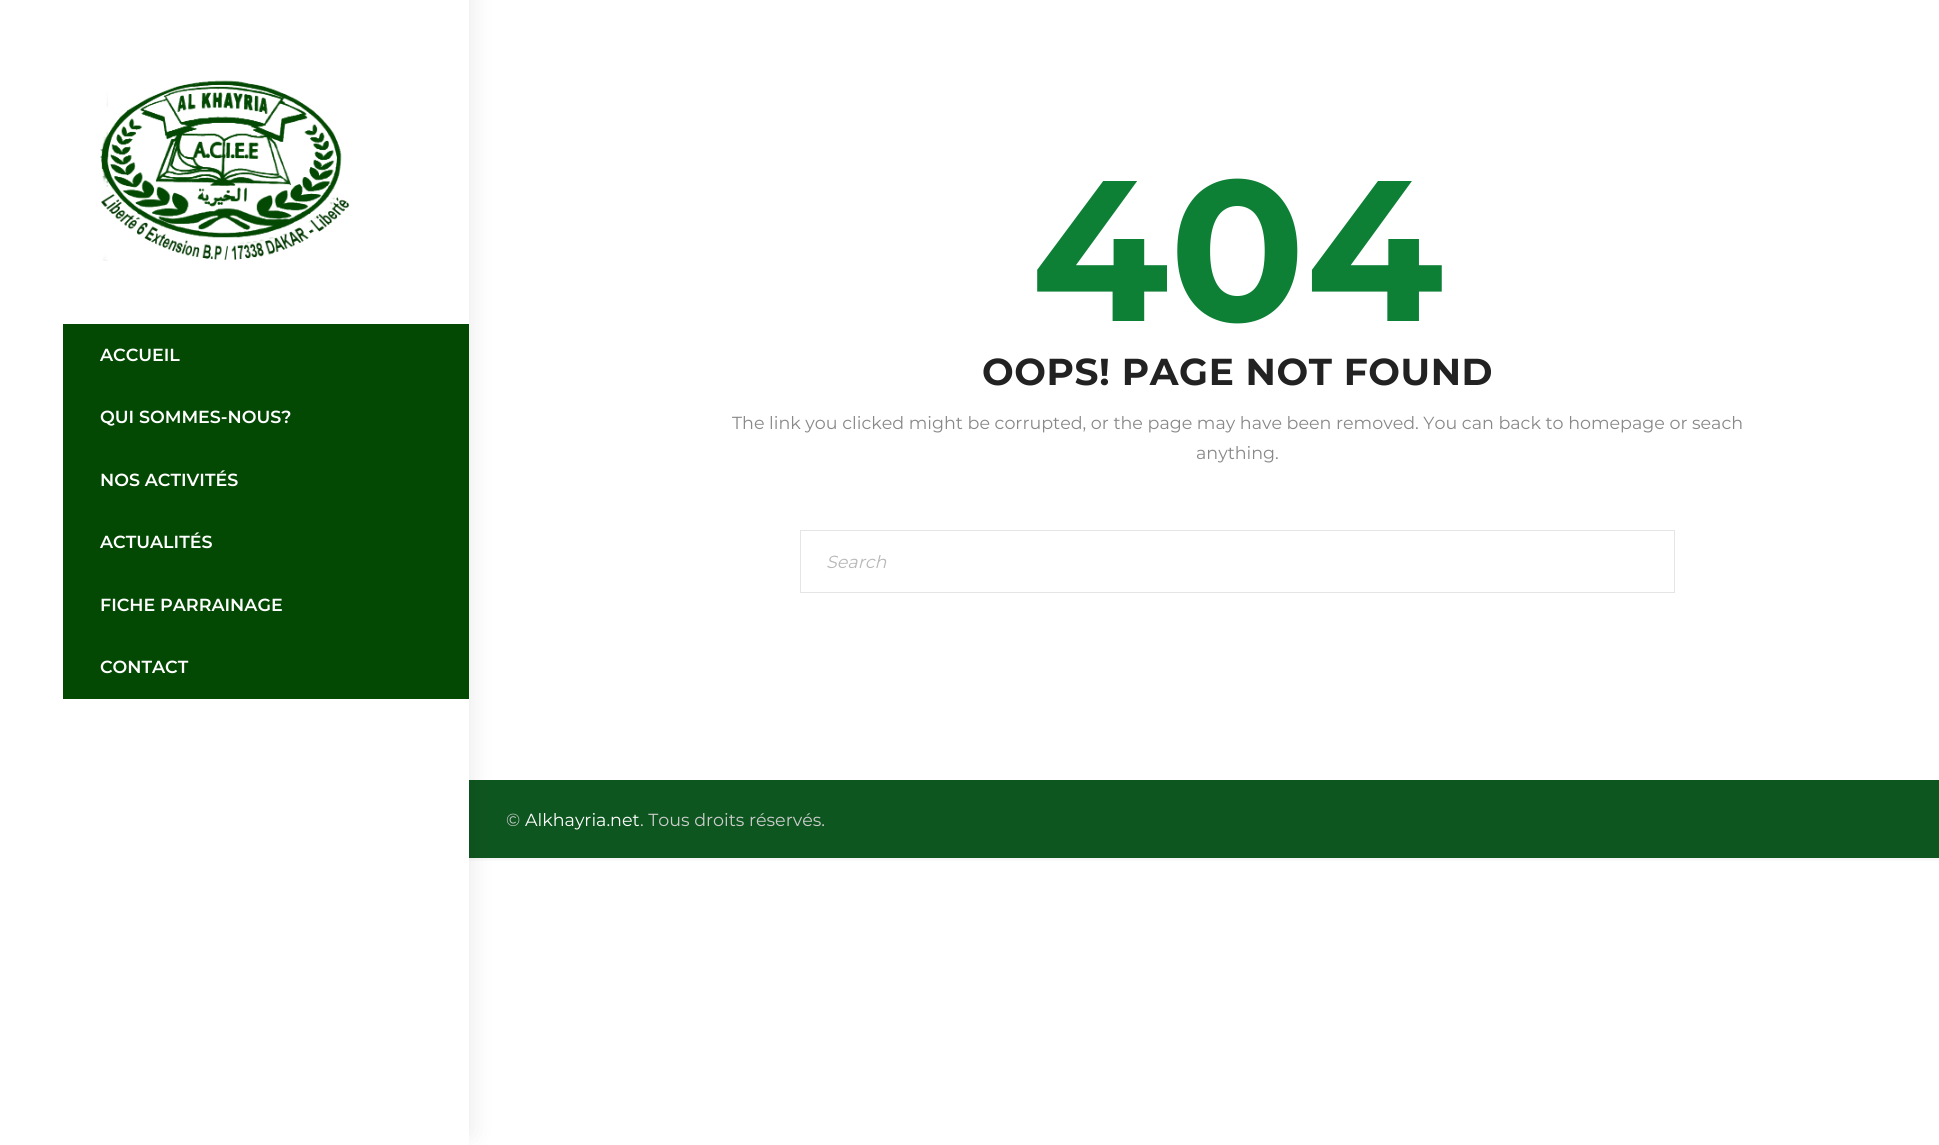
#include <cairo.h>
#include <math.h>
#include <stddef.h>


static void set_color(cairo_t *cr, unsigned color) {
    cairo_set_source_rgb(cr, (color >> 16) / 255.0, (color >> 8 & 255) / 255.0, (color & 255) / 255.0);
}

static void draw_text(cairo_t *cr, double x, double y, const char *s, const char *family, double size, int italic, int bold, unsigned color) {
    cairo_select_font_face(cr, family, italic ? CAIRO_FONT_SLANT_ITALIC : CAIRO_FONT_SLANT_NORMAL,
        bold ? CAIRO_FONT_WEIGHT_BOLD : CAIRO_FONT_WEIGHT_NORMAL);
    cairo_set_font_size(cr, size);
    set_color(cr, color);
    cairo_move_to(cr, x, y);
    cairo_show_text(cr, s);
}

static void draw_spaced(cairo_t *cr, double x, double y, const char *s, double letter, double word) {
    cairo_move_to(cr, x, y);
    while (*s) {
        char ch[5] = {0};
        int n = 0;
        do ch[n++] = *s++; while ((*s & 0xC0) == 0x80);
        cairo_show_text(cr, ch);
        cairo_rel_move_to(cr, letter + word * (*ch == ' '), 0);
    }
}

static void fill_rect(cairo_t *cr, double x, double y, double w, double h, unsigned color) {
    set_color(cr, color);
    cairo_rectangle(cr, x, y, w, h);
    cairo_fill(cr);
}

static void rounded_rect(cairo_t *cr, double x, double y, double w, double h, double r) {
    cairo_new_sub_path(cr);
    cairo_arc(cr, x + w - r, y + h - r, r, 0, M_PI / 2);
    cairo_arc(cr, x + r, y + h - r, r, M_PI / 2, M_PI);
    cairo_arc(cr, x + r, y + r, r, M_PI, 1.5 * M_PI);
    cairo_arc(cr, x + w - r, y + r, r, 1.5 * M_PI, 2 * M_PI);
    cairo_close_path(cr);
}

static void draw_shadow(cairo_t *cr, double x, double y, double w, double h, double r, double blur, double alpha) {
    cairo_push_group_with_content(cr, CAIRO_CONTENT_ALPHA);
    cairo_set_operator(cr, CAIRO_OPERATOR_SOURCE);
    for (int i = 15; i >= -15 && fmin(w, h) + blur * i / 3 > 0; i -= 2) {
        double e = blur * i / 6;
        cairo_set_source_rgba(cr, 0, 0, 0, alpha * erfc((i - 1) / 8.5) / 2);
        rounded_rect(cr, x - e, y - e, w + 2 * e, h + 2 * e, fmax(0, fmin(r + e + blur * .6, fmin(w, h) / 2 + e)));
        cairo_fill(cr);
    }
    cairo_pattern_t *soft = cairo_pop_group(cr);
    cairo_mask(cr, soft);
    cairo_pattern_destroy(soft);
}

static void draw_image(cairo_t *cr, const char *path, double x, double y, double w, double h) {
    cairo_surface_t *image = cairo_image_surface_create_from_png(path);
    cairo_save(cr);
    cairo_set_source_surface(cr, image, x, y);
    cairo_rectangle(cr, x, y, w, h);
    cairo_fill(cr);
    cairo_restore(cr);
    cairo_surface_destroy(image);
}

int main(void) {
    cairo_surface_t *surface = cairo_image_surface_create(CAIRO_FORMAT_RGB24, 1939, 1145);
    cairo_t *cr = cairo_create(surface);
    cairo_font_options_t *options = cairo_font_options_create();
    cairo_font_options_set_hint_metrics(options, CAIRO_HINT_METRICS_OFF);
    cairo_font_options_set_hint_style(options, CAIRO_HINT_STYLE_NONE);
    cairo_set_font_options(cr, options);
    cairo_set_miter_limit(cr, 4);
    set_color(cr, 0xFFFFFF);
    cairo_paint(cr);
    cairo_save(cr);
    cairo_rectangle(cr, 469, 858, 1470, 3);
    cairo_clip(cr);
    set_color(cr, 0x000000);
    draw_shadow(cr, 469, 0, 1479, 858, 0, 3, 0.1);
    cairo_restore(cr);
    fill_rect(cr, 469, 780, 1470, 78, 0x0E561F);
    set_color(cr, 0x000000);
    draw_shadow(cr, 0, -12, 469, 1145, 0, 12.5, 0.1);
    fill_rect(cr, 0, 0, 469, 1145, 0xFFFFFF);
    draw_image(cr, "assets/img1.png", 100, 80, 250, 181);
    fill_rect(cr, 63, 324, 406, 375, 0x034803);
    draw_text(cr, 100, 361, "ACCUEIL", "Montserrat SemiBold", 17.5, 0, 0, 0xFFFFFF);
    draw_text(cr, 100, 423, "QUI SOMMES-NOUS?", "Montserrat SemiBold", 17.5, 0, 0, 0xFFFFFF);
    draw_text(cr, 100, 486, "NOS ACTIVITÉS", "Montserrat SemiBold", 17.5, 0, 0, 0xFFFFFF);
    draw_text(cr, 100, 548, "ACTUALITÉS", "Montserrat SemiBold", 17.5, 0, 0, 0xFFFFFF);
    draw_text(cr, 100, 611, "FICHE PARRAINAGE", "Montserrat SemiBold", 17.5, 0, 0, 0xFFFFFF);
    draw_text(cr, 100, 673, "CONTACT", "Montserrat SemiBold", 17.5, 0, 0, 0xFFFFFF);
    cairo_select_font_face(cr, "Montserrat", CAIRO_FONT_SLANT_NORMAL, CAIRO_FONT_WEIGHT_BOLD);
    cairo_set_font_size(cr, 200);
    set_color(cr, 0x0D8036);
    draw_spaced(cr, 1031, 321, "404", 0.6, 0);
    cairo_set_font_size(cr, 37.5);
    set_color(cr, 0x222222);
    draw_spaced(cr, 982, 385, "OOPS! PAGE NOT FOUND", 0.6, 0);
    draw_text(cr, 732, 429, "The link you clicked might be corrupted, or the page may have been removed. You can back to homepage or seach", "Montserrat", 17.5, 0, 0, 0x888888);
    draw_text(cr, 1196, 459, "anything.", "Montserrat", 17.5, 0, 0, 0x888888);
    cairo_rectangle(cr, 800.5, 530.5, 874, 62);
    set_color(cr, 0xE5E5E5);
    cairo_set_line_width(cr, 1);
    cairo_stroke(cr);
    draw_text(cr, 826, 568, "Search", "Montserrat", 17.5, 1, 0, 0xB8B8B8);
    draw_text(cr, 506, 826, "©", "Montserrat", 17.5, 0, 0, 0xCCCCCC);
    draw_text(cr, 525, 826, "Alkhayria.net", "Montserrat", 17.5, 0, 0, 0xFFFFFF);
    draw_text(cr, 640, 826, ". Tous droits réservés.", "Montserrat", 17.5, 0, 0, 0xCCCCCC);
    cairo_surface_write_to_png(surface, "output.png");
    cairo_font_options_destroy(options);
    cairo_destroy(cr);
    cairo_surface_destroy(surface);
    return 0;
}
